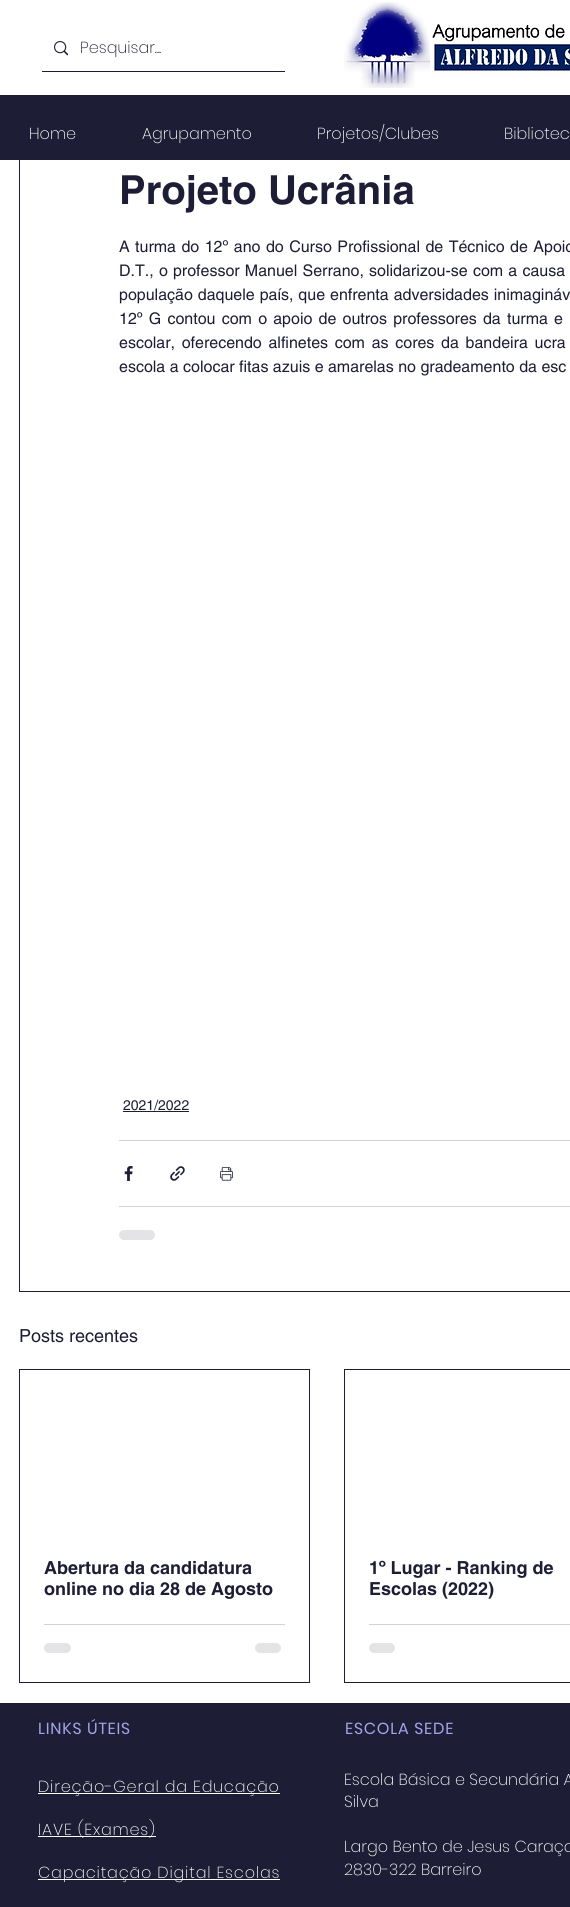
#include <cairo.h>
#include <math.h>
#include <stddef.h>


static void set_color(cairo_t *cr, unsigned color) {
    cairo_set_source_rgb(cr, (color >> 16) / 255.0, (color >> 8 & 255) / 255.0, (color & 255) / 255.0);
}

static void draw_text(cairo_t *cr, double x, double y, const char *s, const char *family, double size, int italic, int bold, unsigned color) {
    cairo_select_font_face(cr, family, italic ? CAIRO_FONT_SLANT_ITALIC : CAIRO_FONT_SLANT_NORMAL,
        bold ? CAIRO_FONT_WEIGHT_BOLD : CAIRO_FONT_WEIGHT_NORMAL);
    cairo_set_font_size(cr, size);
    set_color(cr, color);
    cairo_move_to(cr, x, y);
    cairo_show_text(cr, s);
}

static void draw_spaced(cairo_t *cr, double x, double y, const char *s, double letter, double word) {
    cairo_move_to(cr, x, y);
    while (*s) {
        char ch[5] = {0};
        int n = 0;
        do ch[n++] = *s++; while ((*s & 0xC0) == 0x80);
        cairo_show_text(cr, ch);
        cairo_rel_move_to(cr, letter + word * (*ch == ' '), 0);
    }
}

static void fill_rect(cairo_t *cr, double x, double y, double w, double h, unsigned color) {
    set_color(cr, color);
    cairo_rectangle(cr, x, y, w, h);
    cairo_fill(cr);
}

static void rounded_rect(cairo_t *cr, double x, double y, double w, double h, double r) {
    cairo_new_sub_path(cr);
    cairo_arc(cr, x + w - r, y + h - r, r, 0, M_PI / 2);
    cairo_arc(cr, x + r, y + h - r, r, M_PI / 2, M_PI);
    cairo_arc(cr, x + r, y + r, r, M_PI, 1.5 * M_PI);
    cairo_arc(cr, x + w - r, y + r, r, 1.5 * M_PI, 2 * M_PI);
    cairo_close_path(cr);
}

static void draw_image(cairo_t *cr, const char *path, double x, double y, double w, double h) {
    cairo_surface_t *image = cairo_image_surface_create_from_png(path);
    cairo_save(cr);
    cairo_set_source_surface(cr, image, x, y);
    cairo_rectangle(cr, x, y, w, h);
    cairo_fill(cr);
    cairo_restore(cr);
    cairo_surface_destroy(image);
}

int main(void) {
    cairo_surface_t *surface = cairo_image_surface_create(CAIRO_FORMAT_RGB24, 570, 1907);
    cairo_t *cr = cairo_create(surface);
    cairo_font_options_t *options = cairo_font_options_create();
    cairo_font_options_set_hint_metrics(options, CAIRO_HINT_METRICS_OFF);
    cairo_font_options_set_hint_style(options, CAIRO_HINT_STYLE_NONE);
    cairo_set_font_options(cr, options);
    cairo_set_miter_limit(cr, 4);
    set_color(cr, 0xFFFFFF);
    cairo_paint(cr);
    fill_rect(cr, 42, 71, 243, 1, 0x1D1D36);
    draw_image(cr, "assets/img1.png", 54, 41, 14, 15);
    draw_text(cr, 80, 53, "Pesquisar...", "Poppins ExtraLight", 16, 0, 0, 0x1D1D36);
    cairo_rectangle(cr, 19.5, 80.5, 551, 1211);
    cairo_set_line_width(cr, 1);
    cairo_stroke(cr);
    fill_rect(cr, 19, 80, 551, 15, 0xFFFFFF);
    draw_image(cr, "assets/img2.png", 344, 2, 226, 86);
    fill_rect(cr, 0, 95, 570, 65, 0x1D1D36);
    draw_text(cr, 29, 139, "Home", "Poppins ExtraLight", 16, 0, 0, 0xFFFFFF);
    draw_text(cr, 142, 139, "Agrupamento", "Poppins ExtraLight", 16, 0, 0, 0xFFFFFF);
    draw_text(cr, 317, 139, "Projetos/Clubes", "Poppins ExtraLight", 16, 0, 0, 0xFFFFFF);
    draw_text(cr, 504, 139, "Bibliotec", "Poppins ExtraLight", 16, 0, 0, 0xFFFFFF);
    draw_text(cr, 119, 204, "Projeto Ucrânia", "helvetica", 40, 0, 1, 0x1D1D36);
    cairo_select_font_face(cr, "helvetica", CAIRO_FONT_SLANT_NORMAL, CAIRO_FONT_WEIGHT_NORMAL);
    cairo_set_font_size(cr, 16);
    draw_spaced(cr, 119, 252, "A turma do 12º ano do Curso Profissional de Técnico de Apoio", 0, 1);
    draw_spaced(cr, 119, 276, "D.T., o professor Manuel Serrano, solidarizou-se com a causa", 0, 0.75);
    draw_spaced(cr, 119, 300, "população daquele país, que enfrenta adversidades inimagináv", 0, 0.5);
    draw_spaced(cr, 119, 324, "12º G contou com o apoio de outros professores da turma e", 0, 1.75);
    draw_spaced(cr, 119, 348, "escolar, oferecendo alfinetes com as cores da bandeira ucra", 0, 2.25);
    draw_text(cr, 119, 372, "escola a colocar fitas azuis e amarelas no gradeamento da esc", "helvetica", 16, 0, 0, 0x1D1D36);
    draw_text(cr, 123, 1110, "2021/2022", "helvetica", 14, 0, 0, 0x1D1D36);
    fill_rect(cr, 123, 1111, 66, 1, 0x1D1D36);
    fill_rect(cr, 119, 1140, 451, 1, 0xD2D2D7);
    draw_image(cr, "assets/img3.png", 124, 1166, 9, 15);
    draw_image(cr, "assets/img4.png", 170, 1166, 15, 15);
    draw_image(cr, "assets/img5.png", 220, 1167, 13, 14);
    fill_rect(cr, 119, 1206, 451, 1, 0xD2D2D7);
    set_color(cr, 0xE4E4E7);
    rounded_rect(cr, 119, 1230, 36, 10, 5);
    cairo_fill(cr);
    draw_text(cr, 19, 1342, "Posts recentes", "helvetica", 18, 0, 0, 0x1D1D36);
    cairo_rectangle(cr, 19.5, 1369.5, 290, 313);
    cairo_stroke(cr);
    draw_text(cr, 44, 1574, "Abertura da candidatura", "helvetica", 18, 0, 1, 0x1D1D36);
    draw_text(cr, 44, 1595, "online no dia 28 de Agosto", "helvetica", 18, 0, 1, 0x1D1D36);
    fill_rect(cr, 44, 1624, 241, 1, 0xD2D2D7);
    set_color(cr, 0xE4E4E7);
    rounded_rect(cr, 44, 1643, 27, 10, 5);
    cairo_fill(cr);
    rounded_rect(cr, 255, 1643, 26, 10, 5);
    cairo_fill(cr);
    cairo_rectangle(cr, 344.5, 1369.5, 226, 313);
    set_color(cr, 0x1D1D36);
    cairo_stroke(cr);
    draw_text(cr, 369, 1574, "1º Lugar - Ranking de", "helvetica", 18, 0, 1, 0x1D1D36);
    draw_text(cr, 369, 1595, "Escolas (2022)", "helvetica", 18, 0, 1, 0x1D1D36);
    fill_rect(cr, 369, 1624, 201, 1, 0xD2D2D7);
    set_color(cr, 0xE4E4E7);
    rounded_rect(cr, 369, 1643, 26, 10, 5);
    cairo_fill(cr);
    fill_rect(cr, 0, 1703, 570, 204, 0x1D1D36);
    cairo_select_font_face(cr, "Poppins", CAIRO_FONT_SLANT_NORMAL, CAIRO_FONT_WEIGHT_NORMAL);
    cairo_set_font_size(cr, 16);
    set_color(cr, 0xA4A3E7);
    draw_spaced(cr, 38, 1734, "LINKS ÚTEIS", 0.8, 0);
    fill_rect(cr, 38, 1793, 242, 1, 0xFFFFFF);
    cairo_select_font_face(cr, "Poppins ExtraLight", CAIRO_FONT_SLANT_NORMAL, CAIRO_FONT_WEIGHT_NORMAL);
    draw_spaced(cr, 38, 1792, "Direção-Geral da Educação", 0.8, 0);
    fill_rect(cr, 38, 1836, 118, 1, 0xFFFFFF);
    draw_spaced(cr, 38, 1835, "IAVE (Exames)", 0.8, 0);
    fill_rect(cr, 38, 1879, 242, 1, 0xFFFFFF);
    draw_spaced(cr, 38, 1878, "Capacitação Digital Escolas", 0.8, 0);
    cairo_select_font_face(cr, "Poppins", CAIRO_FONT_SLANT_NORMAL, CAIRO_FONT_WEIGHT_NORMAL);
    set_color(cr, 0xA4A3E7);
    draw_spaced(cr, 345, 1734, "ESCOLA SEDE", 0.8, 0);
    draw_text(cr, 344, 1785, "Escola Básica e Secundária A", "Poppins ExtraLight", 16, 0, 0, 0xFFFFFF);
    draw_text(cr, 344, 1807, "Silva", "Poppins ExtraLight", 16, 0, 0, 0xFFFFFF);
    draw_text(cr, 344, 1852, "Largo Bento de Jesus Caraça", "Poppins ExtraLight", 16, 0, 0, 0xFFFFFF);
    draw_text(cr, 344, 1875, "2830-322 Barreiro", "Poppins ExtraLight", 16, 0, 0, 0xFFFFFF);
    cairo_surface_write_to_png(surface, "output.png");
    cairo_font_options_destroy(options);
    cairo_destroy(cr);
    cairo_surface_destroy(surface);
    return 0;
}
